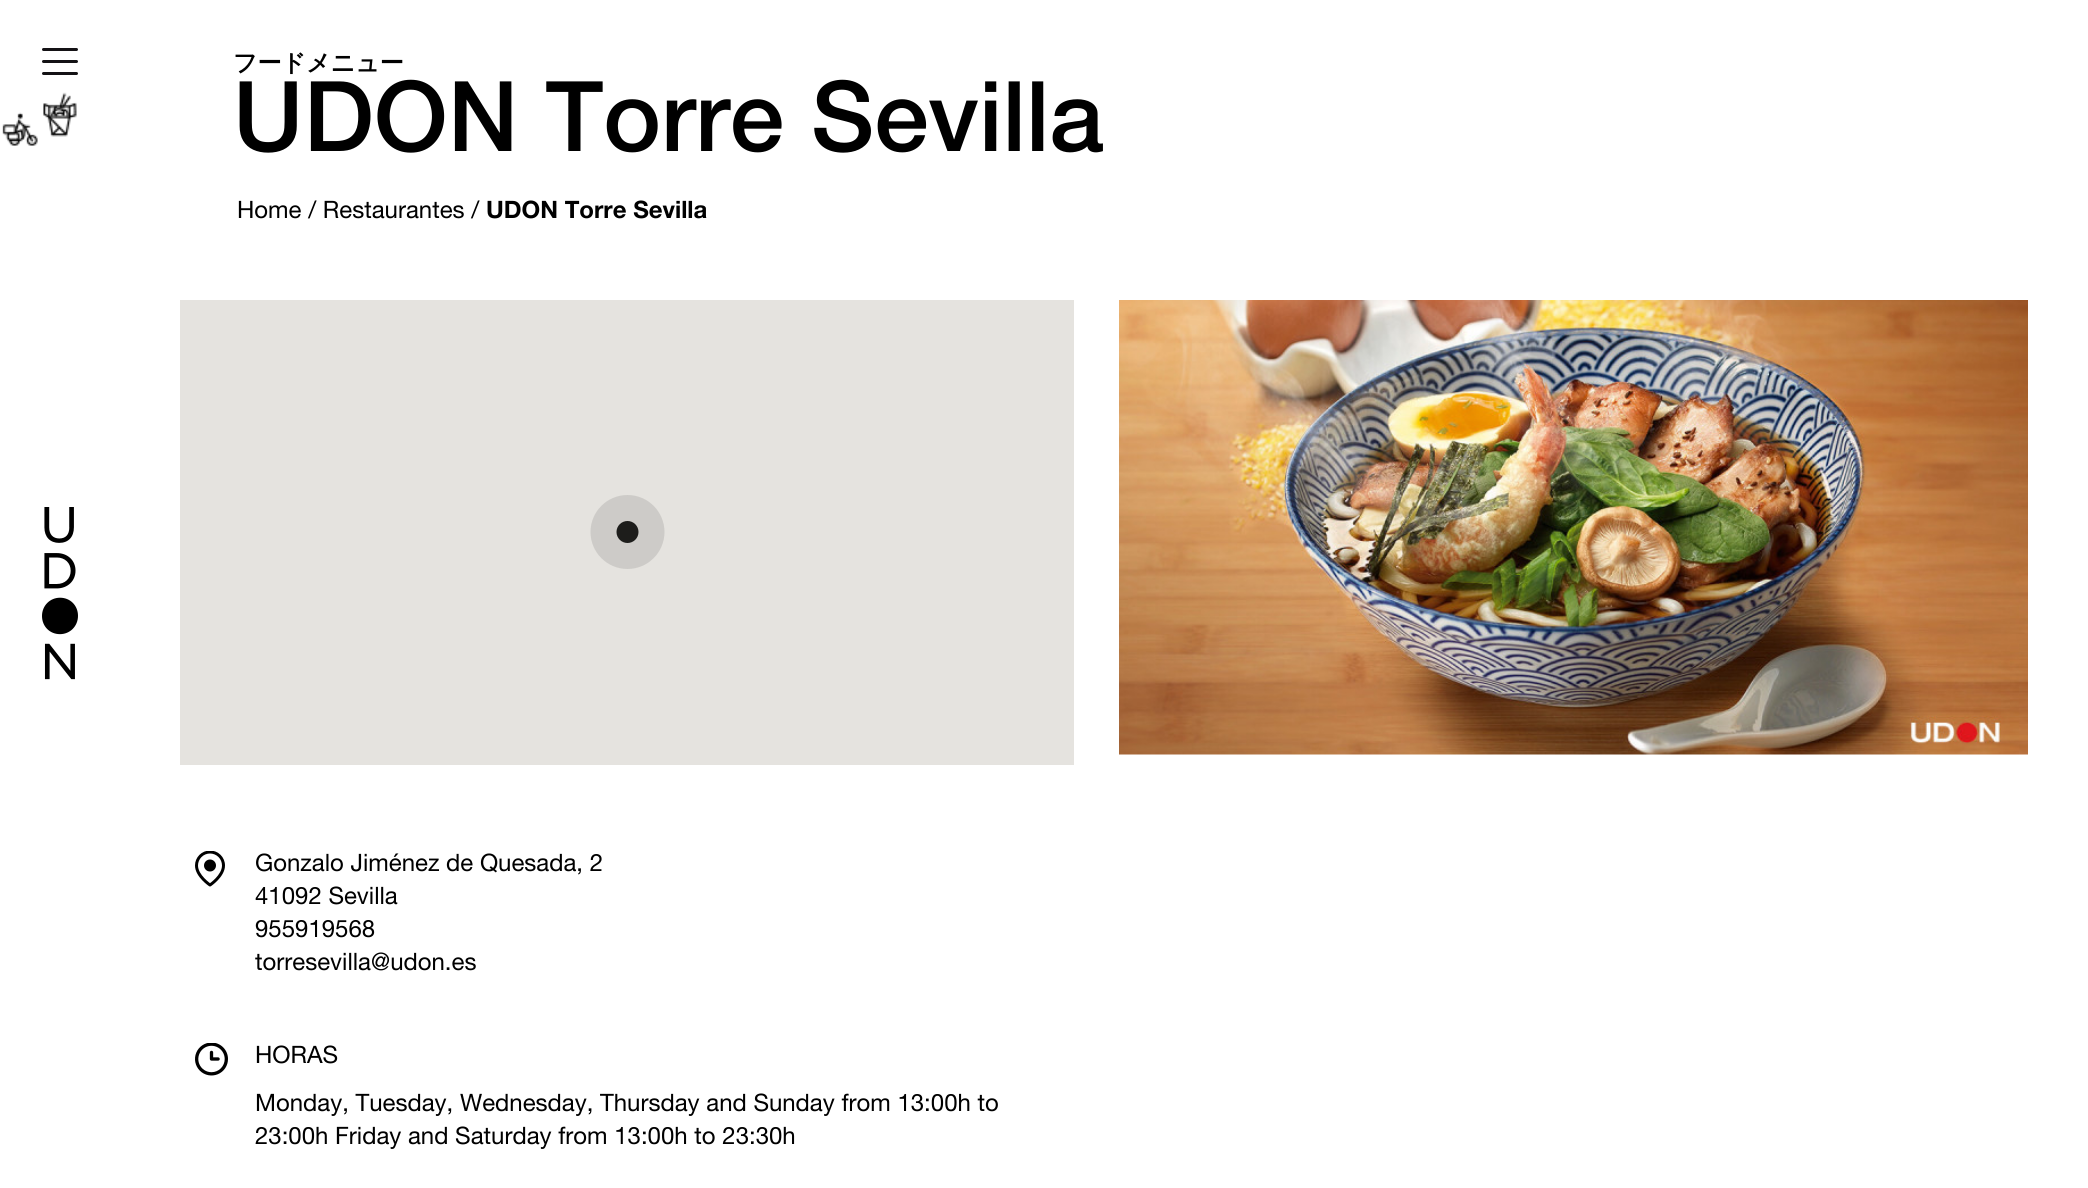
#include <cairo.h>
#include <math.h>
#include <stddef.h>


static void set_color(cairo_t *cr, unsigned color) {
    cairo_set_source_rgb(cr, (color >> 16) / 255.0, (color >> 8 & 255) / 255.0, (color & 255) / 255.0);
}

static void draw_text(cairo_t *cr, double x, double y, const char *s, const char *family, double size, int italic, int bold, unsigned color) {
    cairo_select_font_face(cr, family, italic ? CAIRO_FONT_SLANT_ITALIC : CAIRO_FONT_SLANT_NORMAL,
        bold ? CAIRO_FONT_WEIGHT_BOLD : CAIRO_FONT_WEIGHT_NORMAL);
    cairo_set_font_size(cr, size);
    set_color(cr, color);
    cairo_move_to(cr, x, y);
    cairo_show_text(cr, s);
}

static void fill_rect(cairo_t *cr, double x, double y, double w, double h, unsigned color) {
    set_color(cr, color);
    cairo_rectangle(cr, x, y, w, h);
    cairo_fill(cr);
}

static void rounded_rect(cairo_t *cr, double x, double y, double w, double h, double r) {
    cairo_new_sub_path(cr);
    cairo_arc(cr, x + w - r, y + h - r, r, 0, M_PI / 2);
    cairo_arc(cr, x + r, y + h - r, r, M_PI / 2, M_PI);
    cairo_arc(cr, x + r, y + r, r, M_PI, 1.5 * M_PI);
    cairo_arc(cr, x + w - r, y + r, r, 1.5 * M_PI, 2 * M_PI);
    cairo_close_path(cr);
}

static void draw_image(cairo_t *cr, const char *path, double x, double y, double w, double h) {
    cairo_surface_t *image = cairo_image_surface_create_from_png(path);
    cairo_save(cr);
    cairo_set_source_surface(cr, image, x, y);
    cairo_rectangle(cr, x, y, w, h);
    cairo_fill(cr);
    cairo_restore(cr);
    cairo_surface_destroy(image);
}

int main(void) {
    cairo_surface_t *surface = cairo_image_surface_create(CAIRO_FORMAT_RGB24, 2088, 1188);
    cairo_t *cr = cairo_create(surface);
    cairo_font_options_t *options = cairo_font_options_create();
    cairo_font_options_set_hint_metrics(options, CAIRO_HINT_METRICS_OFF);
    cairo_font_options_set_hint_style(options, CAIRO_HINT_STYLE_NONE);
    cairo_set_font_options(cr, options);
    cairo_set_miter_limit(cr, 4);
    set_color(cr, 0xFFFFFF);
    cairo_paint(cr);
    set_color(cr, 0x141215);
    rounded_rect(cr, 42, 72, 36, 3, 1.5);
    cairo_fill(cr);
    rounded_rect(cr, 42, 48, 36, 3, 1.5);
    cairo_fill(cr);
    rounded_rect(cr, 42, 60, 36, 3, 1.5);
    cairo_fill(cr);
    draw_image(cr, "assets/img1.png", 2, 92, 75, 54);
    draw_image(cr, "assets/img2.png", 42, 507, 36, 173);
    draw_text(cr, 233, 71, "フードメニュー", "WenQuanYi Zen Hei", 24, 0, 1, 0x000000);
    draw_text(cr, 233, 151, "UDON Torre Sevilla", "Helvetica Neue Medium", 97.5, 0, 0, 0x000000);
    draw_text(cr, 237, 218, "Home / Restaurantes /", "Helvetica Neue", 24, 0, 0, 0x000000);
    draw_text(cr, 486, 218, "UDON Torre Sevilla", "Helvetica Neue", 24, 0, 1, 0x000000);
    draw_image(cr, "assets/img3.png", 1119, 300, 909, 455);
    fill_rect(cr, 180, 300, 894, 465, 0xE5E3DF);
    set_color(cr, 0x1D1D1B);
    cairo_arc(cr, 627.5, 532, 11, 0, 2 * M_PI);
    cairo_fill(cr);
    cairo_set_source_rgba(cr, 0.114, 0.114, 0.106, 0.12);
    cairo_arc(cr, 627.5, 532, 37, 0, 2 * M_PI);
    cairo_fill(cr);
    draw_image(cr, "assets/img4.png", 195, 851, 30, 36);
    draw_text(cr, 255, 871, "Gonzalo Jiménez de Quesada, 2", "Helvetica Neue", 24, 0, 0, 0x000000);
    draw_text(cr, 255, 904, "41092 Sevilla", "Helvetica Neue", 24, 0, 0, 0x000000);
    draw_text(cr, 255, 937, "955919568", "Helvetica Neue", 24, 0, 0, 0x000000);
    draw_text(cr, 255, 970, "torresevilla@udon.es", "Helvetica Neue", 24, 0, 0, 0x000000);
    draw_image(cr, "assets/img5.png", 195, 1043, 33, 33);
    draw_text(cr, 255, 1063, "HORAS", "Helvetica Neue", 24, 0, 0, 0x000000);
    draw_text(cr, 255, 1111, "Monday, Tuesday, Wednesday, Thursday and Sunday from 13:00h to", "Helvetica Neue", 24, 0, 0, 0x000000);
    draw_text(cr, 255, 1144, "23:00h Friday and Saturday from 13:00h to 23:30h", "Helvetica Neue", 24, 0, 0, 0x000000);
    cairo_surface_write_to_png(surface, "output.png");
    cairo_font_options_destroy(options);
    cairo_destroy(cr);
    cairo_surface_destroy(surface);
    return 0;
}
